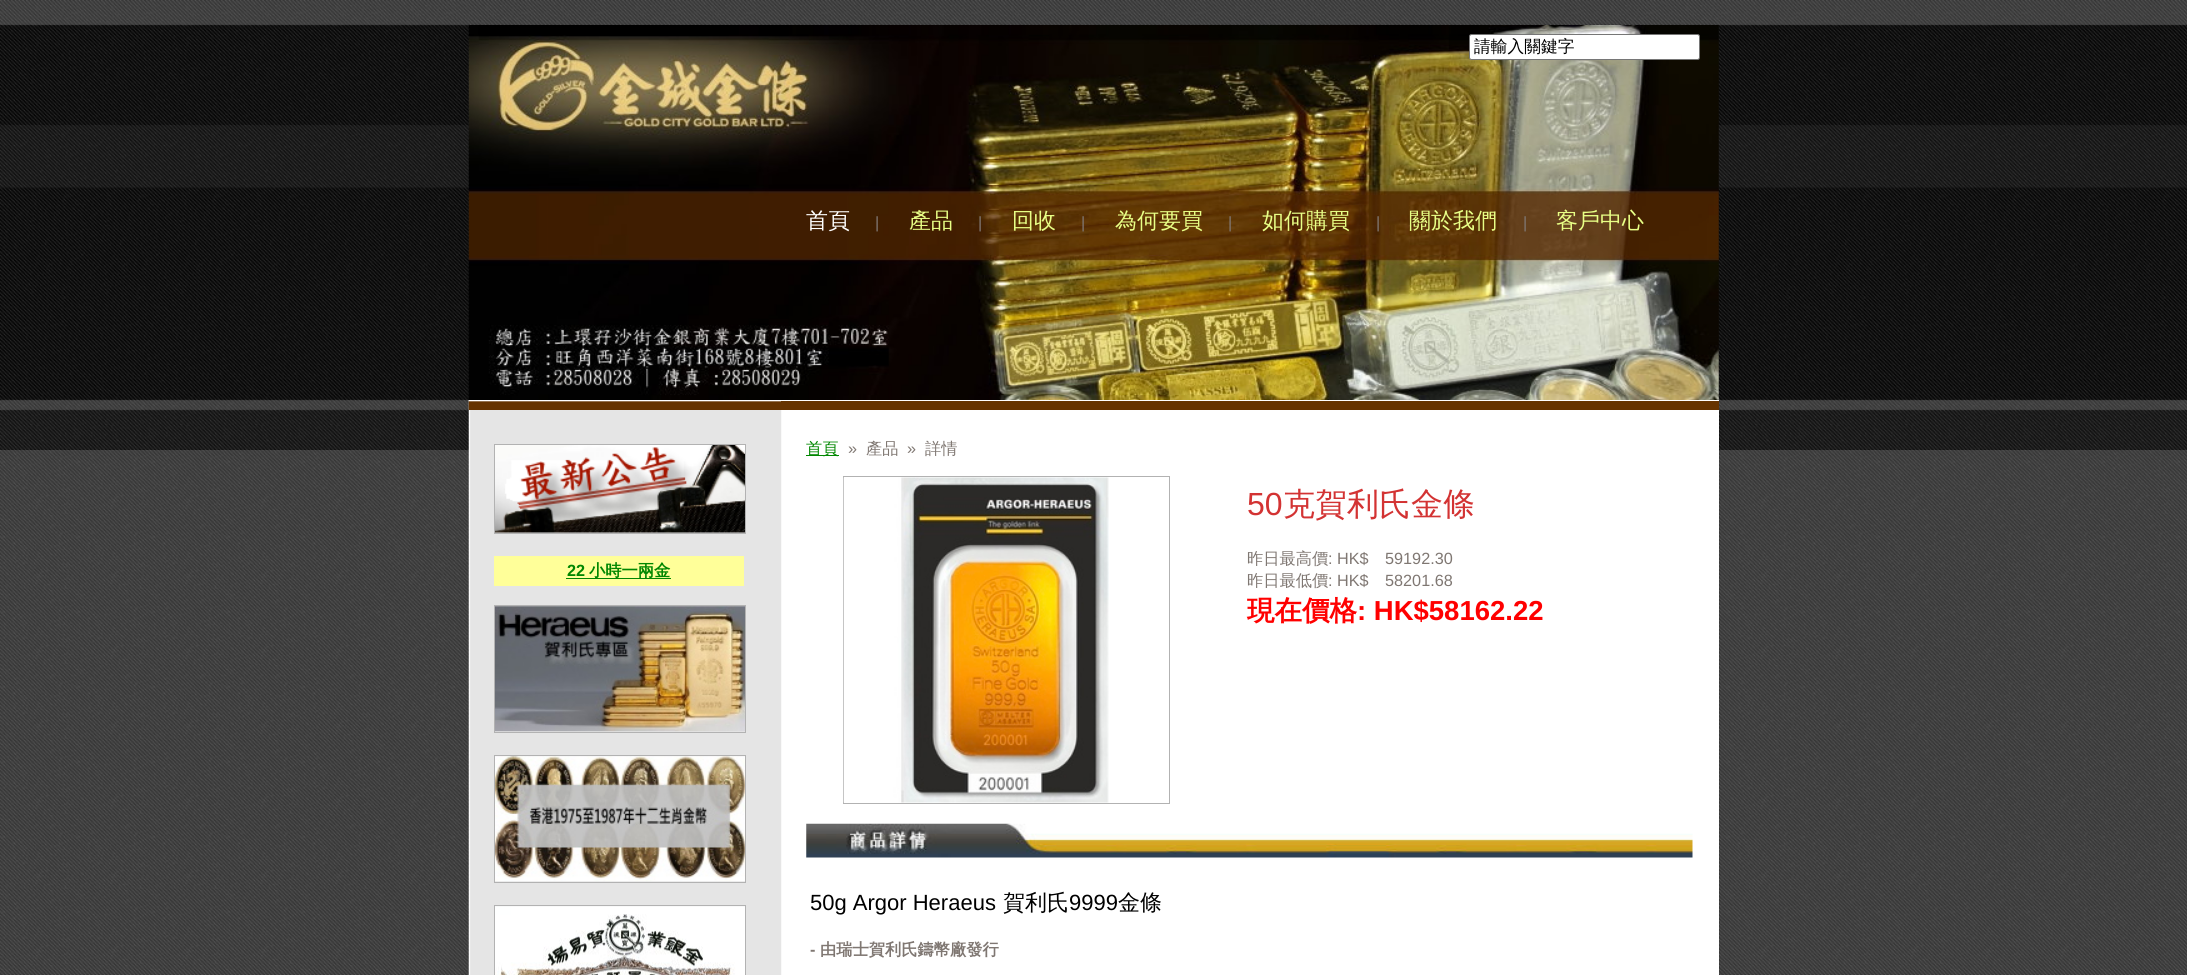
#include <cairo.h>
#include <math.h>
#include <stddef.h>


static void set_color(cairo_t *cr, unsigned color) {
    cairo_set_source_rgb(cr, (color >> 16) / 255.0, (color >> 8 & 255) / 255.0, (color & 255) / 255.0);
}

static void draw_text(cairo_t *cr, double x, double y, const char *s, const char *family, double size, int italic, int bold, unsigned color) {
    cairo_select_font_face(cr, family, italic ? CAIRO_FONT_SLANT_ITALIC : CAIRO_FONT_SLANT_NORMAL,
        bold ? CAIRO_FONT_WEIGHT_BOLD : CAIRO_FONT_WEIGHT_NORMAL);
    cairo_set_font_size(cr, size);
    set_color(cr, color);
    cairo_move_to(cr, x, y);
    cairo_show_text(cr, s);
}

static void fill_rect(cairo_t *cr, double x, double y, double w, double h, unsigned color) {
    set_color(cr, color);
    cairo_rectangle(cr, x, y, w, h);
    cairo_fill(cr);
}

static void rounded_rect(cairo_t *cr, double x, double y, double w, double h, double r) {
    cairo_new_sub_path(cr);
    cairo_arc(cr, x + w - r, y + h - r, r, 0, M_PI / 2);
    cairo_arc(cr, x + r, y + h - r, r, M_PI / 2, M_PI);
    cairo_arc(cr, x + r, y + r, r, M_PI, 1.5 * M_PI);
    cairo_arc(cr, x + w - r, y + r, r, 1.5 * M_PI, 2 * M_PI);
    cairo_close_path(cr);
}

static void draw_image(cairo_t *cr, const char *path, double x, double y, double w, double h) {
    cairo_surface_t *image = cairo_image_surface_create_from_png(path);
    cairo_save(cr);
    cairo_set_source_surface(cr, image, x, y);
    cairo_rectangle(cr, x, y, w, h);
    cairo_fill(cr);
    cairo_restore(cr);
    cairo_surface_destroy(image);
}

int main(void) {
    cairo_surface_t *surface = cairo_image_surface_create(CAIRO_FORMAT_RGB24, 2187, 975);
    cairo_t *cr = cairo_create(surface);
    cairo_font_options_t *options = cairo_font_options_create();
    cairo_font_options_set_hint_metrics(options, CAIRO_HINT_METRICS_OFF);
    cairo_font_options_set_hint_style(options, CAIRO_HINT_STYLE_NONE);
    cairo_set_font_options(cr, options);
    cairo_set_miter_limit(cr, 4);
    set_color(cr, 0xFFFFFF);
    cairo_paint(cr);
    draw_image(cr, "assets/img1.png", 0, 450, 2187, 525);
    draw_image(cr, "assets/img2.png", 0, 0, 2187, 450);
    draw_image(cr, "assets/img3.png", 468, 25, 1251, 375);
    set_color(cr, 0xFFFFFF);
    rounded_rect(cr, 1469.5, 34.5, 230, 25, 2);
    cairo_fill_preserve(cr);
    set_color(cr, 0x767676);
    cairo_set_line_width(cr, 1);
    cairo_stroke(cr);
    draw_text(cr, 1474, 52, "請輸入關鍵字", "WenQuanYi Zen Hei Medium", 16.75, 0, 0, 0x000000);
    draw_text(cr, 806, 228, "首頁", "WenQuanYi Zen Hei Medium", 22, 0, 0, 0xFFFFFF);
    draw_text(cr, 875, 228, "|", "Liberation Sans", 16.25, 0, 0, 0x7F7772);
    draw_text(cr, 909, 228, "產品", "WenQuanYi Zen Hei Medium", 22, 0, 0, 0xE8FF86);
    draw_text(cr, 978, 228, "|", "Liberation Sans", 16.25, 0, 0, 0x7F7772);
    draw_text(cr, 1012, 228, "回收", "WenQuanYi Zen Hei Medium", 22, 0, 0, 0xE8FF86);
    draw_text(cr, 1081, 228, "|", "Liberation Sans", 16.25, 0, 0, 0x7F7772);
    draw_text(cr, 1115, 228, "為何要買", "WenQuanYi Zen Hei Medium", 22, 0, 0, 0xE8FF86);
    draw_text(cr, 1228, 228, "|", "Liberation Sans", 16.25, 0, 0, 0x7F7772);
    draw_text(cr, 1262, 228, "如何購買", "WenQuanYi Zen Hei Medium", 22, 0, 0, 0xE8FF86);
    draw_text(cr, 1376, 228, "|", "Liberation Sans", 16.25, 0, 0, 0x7F7772);
    draw_text(cr, 1409, 228, "關於我們", "WenQuanYi Zen Hei Medium", 22, 0, 0, 0xE8FF86);
    draw_text(cr, 1523, 228, "|", "Liberation Sans", 16.25, 0, 0, 0x7F7772);
    draw_text(cr, 1556, 228, "客戶中心", "WenQuanYi Zen Hei Medium", 22, 0, 0, 0xE8FF86);
    fill_rect(cr, 781, 400, 938, 575, 0xFFFFFF);
    draw_image(cr, "assets/img4.png", 468, 400, 314, 575);
    draw_image(cr, "assets/img5.png", 468, 400, 314, 10);
    cairo_rectangle(cr, 494.5, 444.5, 251, 89);
    set_color(cr, 0xB2B2B2);
    cairo_stroke(cr);
    draw_image(cr, "assets/img6.png", 495, 445, 250, 88);
    fill_rect(cr, 494, 556, 250, 30, 0xFFFF99);
    draw_text(cr, 567, 576, "22", "Liberation Sans", 16.25, 0, 1, 0x008700);
    fill_rect(cr, 566, 578, 105, 1, 0x008700);
    draw_text(cr, 589, 576, "小時一兩金", "WenQuanYi Zen Hei", 16.25, 0, 1, 0x008700);
    cairo_rectangle(cr, 494.5, 605.5, 251, 127);
    set_color(cr, 0xB2B2B2);
    cairo_stroke(cr);
    draw_image(cr, "assets/img7.png", 495, 606, 250, 126);
    cairo_rectangle(cr, 494.5, 755.5, 251, 127);
    cairo_stroke(cr);
    draw_image(cr, "assets/img8.png", 495, 756, 250, 126);
    cairo_rectangle(cr, 494.5, 905.5, 251, 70);
    cairo_stroke(cr);
    draw_image(cr, "assets/img9.png", 495, 906, 250, 69);
    fill_rect(cr, 781, 401, 938, 9, 0x663300);
    fill_rect(cr, 806, 455, 33, 1, 0x008700);
    draw_text(cr, 806, 454, "首頁", "WenQuanYi Zen Hei Medium", 16.25, 0, 0, 0x008700);
    draw_text(cr, 848, 454, "»", "Liberation Sans", 16.25, 0, 0, 0x7F7772);
    draw_text(cr, 866, 454, "產品", "WenQuanYi Zen Hei Medium", 16.25, 0, 0, 0x7F7772);
    draw_text(cr, 907, 454, "»", "Liberation Sans", 16.25, 0, 0, 0x7F7772);
    draw_text(cr, 925, 454, "詳情", "WenQuanYi Zen Hei Medium", 16.25, 0, 0, 0x7F7772);
    cairo_rectangle(cr, 843.5, 476.5, 326, 327);
    set_color(cr, 0xB2B2B2);
    cairo_stroke(cr);
    draw_image(cr, "assets/img10.png", 843, 477, 266, 326);
    draw_text(cr, 1247, 515, "50", "Liberation Sans", 32, 0, 0, 0xD33333);
    draw_text(cr, 1283, 515, "克賀利氏金條", "WenQuanYi Zen Hei Medium", 32, 0, 0, 0xD33333);
    draw_text(cr, 1247, 564, "昨日最高價", "WenQuanYi Zen Hei Medium", 16.25, 0, 0, 0x7F7772);
    draw_text(cr, 1328, 564, ": HK$", "Liberation Sans", 16.25, 0, 0, 0x7F7772);
    draw_text(cr, 1385, 564, "59192.30", "Liberation Sans", 16.25, 0, 0, 0x7F7772);
    draw_text(cr, 1247, 586, "昨日最低價", "WenQuanYi Zen Hei Medium", 16.25, 0, 0, 0x7F7772);
    draw_text(cr, 1328, 586, ": HK$", "Liberation Sans", 16.25, 0, 0, 0x7F7772);
    draw_text(cr, 1385, 586, "58201.68", "Liberation Sans", 16.25, 0, 0, 0x7F7772);
    draw_text(cr, 1247, 620, "現在價格", "WenQuanYi Zen Hei", 27.5, 0, 1, 0xFF0000);
    draw_text(cr, 1357, 620, ": HK$58162.22", "Liberation Sans", 27.5, 0, 1, 0xFF0000);
    draw_image(cr, "assets/img11.png", 806, 823, 887, 35);
    draw_text(cr, 810, 910, "50g Argor Heraeus", "Liberation Sans", 22, 0, 0, 0x000000);
    draw_text(cr, 1003, 910, "賀利氏", "WenQuanYi Zen Hei Medium", 22, 0, 0, 0x000000);
    draw_text(cr, 1069, 910, "9999", "Liberation Sans", 22, 0, 0, 0x000000);
    draw_text(cr, 1118, 910, "金條", "WenQuanYi Zen Hei Medium", 22, 0, 0, 0x000000);
    draw_text(cr, 810, 955, "-", "Liberation Sans", 16.25, 0, 1, 0x7F7772);
    draw_text(cr, 820, 955, "由瑞士賀利氏鑄幣廠發行", "WenQuanYi Zen Hei", 16.25, 0, 1, 0x7F7772);
    cairo_surface_write_to_png(surface, "output.png");
    cairo_font_options_destroy(options);
    cairo_destroy(cr);
    cairo_surface_destroy(surface);
    return 0;
}
